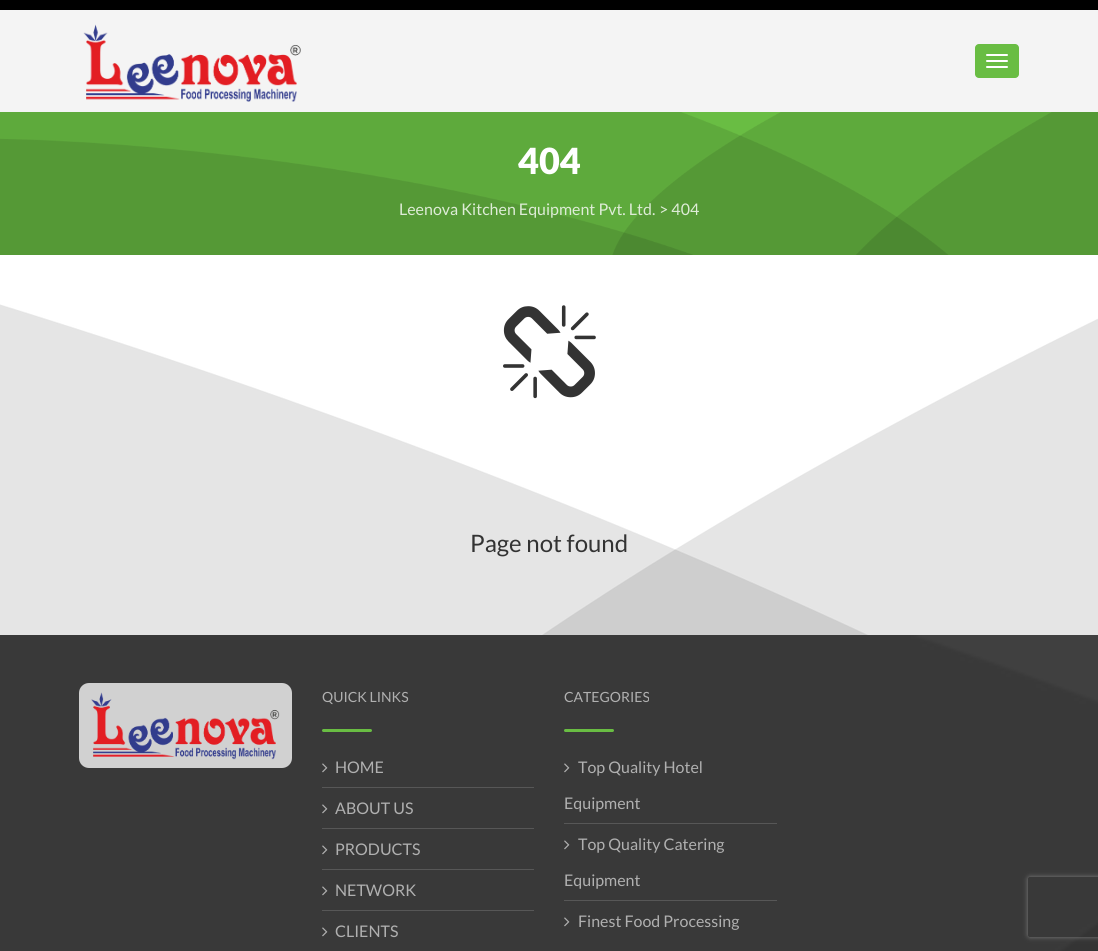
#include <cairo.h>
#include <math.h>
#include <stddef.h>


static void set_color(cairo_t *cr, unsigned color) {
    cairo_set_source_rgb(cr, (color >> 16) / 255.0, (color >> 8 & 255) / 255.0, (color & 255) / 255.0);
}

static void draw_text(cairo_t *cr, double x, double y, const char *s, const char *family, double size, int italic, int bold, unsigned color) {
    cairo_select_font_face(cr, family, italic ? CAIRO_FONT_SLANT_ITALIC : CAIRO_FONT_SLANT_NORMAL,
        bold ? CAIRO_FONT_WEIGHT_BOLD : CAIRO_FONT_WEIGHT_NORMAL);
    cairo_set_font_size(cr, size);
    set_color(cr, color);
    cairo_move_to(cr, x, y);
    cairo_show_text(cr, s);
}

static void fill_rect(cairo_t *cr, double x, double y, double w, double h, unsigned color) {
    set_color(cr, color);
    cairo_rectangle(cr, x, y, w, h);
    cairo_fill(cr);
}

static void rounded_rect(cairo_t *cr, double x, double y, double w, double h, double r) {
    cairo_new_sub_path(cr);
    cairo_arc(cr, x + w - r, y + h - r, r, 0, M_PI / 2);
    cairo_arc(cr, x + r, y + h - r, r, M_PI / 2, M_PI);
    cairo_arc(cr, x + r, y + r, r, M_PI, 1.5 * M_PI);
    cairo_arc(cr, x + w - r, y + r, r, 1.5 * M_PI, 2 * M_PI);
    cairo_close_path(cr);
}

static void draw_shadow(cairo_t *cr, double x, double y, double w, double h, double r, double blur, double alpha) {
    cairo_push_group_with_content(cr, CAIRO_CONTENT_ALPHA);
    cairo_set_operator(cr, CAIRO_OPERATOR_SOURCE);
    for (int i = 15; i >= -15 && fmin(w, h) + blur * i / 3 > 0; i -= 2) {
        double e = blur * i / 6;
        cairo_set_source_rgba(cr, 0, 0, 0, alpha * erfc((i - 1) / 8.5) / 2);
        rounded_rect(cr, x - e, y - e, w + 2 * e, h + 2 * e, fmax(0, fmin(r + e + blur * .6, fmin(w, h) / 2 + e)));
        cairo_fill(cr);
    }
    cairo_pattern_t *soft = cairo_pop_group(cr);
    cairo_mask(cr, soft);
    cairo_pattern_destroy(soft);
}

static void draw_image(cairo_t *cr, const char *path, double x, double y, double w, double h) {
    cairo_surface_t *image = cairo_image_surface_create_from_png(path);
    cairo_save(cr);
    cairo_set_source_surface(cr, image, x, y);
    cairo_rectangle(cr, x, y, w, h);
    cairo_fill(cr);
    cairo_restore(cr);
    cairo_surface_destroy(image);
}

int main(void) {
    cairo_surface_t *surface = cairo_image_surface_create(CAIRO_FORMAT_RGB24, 1098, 951);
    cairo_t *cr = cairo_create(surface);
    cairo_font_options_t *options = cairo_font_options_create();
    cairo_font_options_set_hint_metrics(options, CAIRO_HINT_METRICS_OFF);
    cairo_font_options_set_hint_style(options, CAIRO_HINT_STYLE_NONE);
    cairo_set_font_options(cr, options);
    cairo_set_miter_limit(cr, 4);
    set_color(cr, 0xFFFFFF);
    cairo_paint(cr);
    fill_rect(cr, 0, 0, 1098, 10, 0x000000);
    fill_rect(cr, 0, 10, 1098, 102, 0xF4F4F4);
    draw_image(cr, "assets/img1.png", 83, 24, 218, 78);
    set_color(cr, 0x69BD43);
    rounded_rect(cr, 975, 44, 44, 34, 4);
    cairo_fill(cr);
    set_color(cr, 0xFFFFFF);
    rounded_rect(cr, 986, 54, 22, 2, 1);
    cairo_fill(cr);
    rounded_rect(cr, 986, 60, 22, 2, 1);
    cairo_fill(cr);
    rounded_rect(cr, 986, 66, 22, 2, 1);
    cairo_fill(cr);
    fill_rect(cr, 0, 112, 1098, 143, 0x69BD43);
    draw_image(cr, "assets/img2.png", 0, 112, 1098, 143);
    draw_text(cr, 518, 174, "404", "Lato Black", 36, 0, 0, 0xFFFFFF);
    draw_text(cr, 399, 215, "Leenova Kitchen Equipment Pvt. Ltd.", "Lato", 16, 0, 0, 0xDEECD7);
    draw_text(cr, 659, 215, "> 404", "Lato", 16, 0, 0, 0xDEECD7);
    draw_image(cr, "assets/img3.png", 0, 304, 1098, 331);
    draw_image(cr, "assets/img4.png", 503, 305, 93, 94);
    draw_text(cr, 470, 552, "Page not found", "Lato", 24, 0, 0, 0x333333);
    fill_rect(cr, 0, 635, 1098, 316, 0x404040);
    draw_image(cr, "assets/img5.png", 0, 635, 1098, 316);
    set_color(cr, 0xD1D1D1);
    rounded_rect(cr, 79, 683, 213, 85, 10);
    cairo_fill(cr);
    draw_image(cr, "assets/img6.png", 91, 692, 189, 68);
    draw_text(cr, 322, 702, "QUICK LINKS", "Lato", 14, 0, 0, 0xB0B0B0);
    set_color(cr, 0x69BD43);
    rounded_rect(cr, 322, 729, 50, 3, 1.5);
    cairo_fill(cr);
    fill_rect(cr, 322, 787, 212, 1, 0x575757);
    draw_image(cr, "assets/img7.png", 322, 763, 6, 10);
    draw_text(cr, 335, 773, "HOME", "Lato", 16, 0, 0, 0xB0B0B0);
    fill_rect(cr, 322, 828, 212, 1, 0x575757);
    draw_image(cr, "assets/img7.png", 322, 804, 6, 10);
    draw_text(cr, 335, 814, "ABOUT US", "Lato", 16, 0, 0, 0xB0B0B0);
    fill_rect(cr, 322, 869, 212, 1, 0x575757);
    draw_image(cr, "assets/img7.png", 322, 845, 6, 10);
    draw_text(cr, 335, 855, "PRODUCTS", "Lato", 16, 0, 0, 0xB0B0B0);
    fill_rect(cr, 322, 910, 212, 1, 0x575757);
    draw_image(cr, "assets/img7.png", 322, 886, 6, 10);
    draw_text(cr, 335, 896, "NETWORK", "Lato", 16, 0, 0, 0xB0B0B0);
    draw_image(cr, "assets/img7.png", 322, 927, 6, 10);
    draw_text(cr, 335, 937, "CLIENTS", "Lato", 16, 0, 0, 0xB0B0B0);
    draw_text(cr, 564, 702, "CATEGORIES", "Lato", 14, 0, 0, 0xB0B0B0);
    set_color(cr, 0x69BD43);
    rounded_rect(cr, 564, 729, 50, 3, 1.5);
    cairo_fill(cr);
    fill_rect(cr, 564, 823, 213, 1, 0x575757);
    draw_image(cr, "assets/img7.png", 564, 763, 6, 10);
    draw_text(cr, 578, 773, "Top Quality Hotel", "Lato", 16, 0, 0, 0xB0B0B0);
    draw_text(cr, 564, 809, "Equipment", "Lato", 16, 0, 0, 0xB0B0B0);
    fill_rect(cr, 564, 900, 213, 1, 0x575757);
    draw_image(cr, "assets/img7.png", 564, 840, 6, 10);
    draw_text(cr, 578, 850, "Top Quality Catering", "Lato", 16, 0, 0, 0xB0B0B0);
    draw_text(cr, 564, 886, "Equipment", "Lato", 16, 0, 0, 0xB0B0B0);
    draw_image(cr, "assets/img7.png", 564, 917, 6, 10);
    draw_text(cr, 578, 927, "Finest Food Processing", "Lato", 16, 0, 0, 0xB0B0B0);
    cairo_save(cr);
    cairo_set_fill_rule(cr, CAIRO_FILL_RULE_EVEN_ODD);
    cairo_new_path(cr);
    cairo_move_to(cr, 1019, 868);
    cairo_line_to(cr, 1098, 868);
    cairo_line_to(cr, 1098, 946);
    cairo_line_to(cr, 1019, 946);
    cairo_close_path(cr);
    cairo_move_to(cr, 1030, 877);
    cairo_line_to(cr, 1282, 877);
    cairo_curve_to(cr, 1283, 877, 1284, 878, 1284, 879);
    cairo_line_to(cr, 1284, 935);
    cairo_curve_to(cr, 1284, 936, 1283, 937, 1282, 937);
    cairo_line_to(cr, 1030, 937);
    cairo_curve_to(cr, 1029, 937, 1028, 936, 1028, 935);
    cairo_line_to(cr, 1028, 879);
    cairo_curve_to(cr, 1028, 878, 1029, 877, 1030, 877);
    cairo_close_path(cr);
    cairo_clip(cr);
    set_color(cr, 0x808080);
    draw_shadow(cr, 1028, 877, 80, 60, 2, 2.5, 1);
    cairo_restore(cr);
    cairo_surface_write_to_png(surface, "output.png");
    cairo_font_options_destroy(options);
    cairo_destroy(cr);
    cairo_surface_destroy(surface);
    return 0;
}
